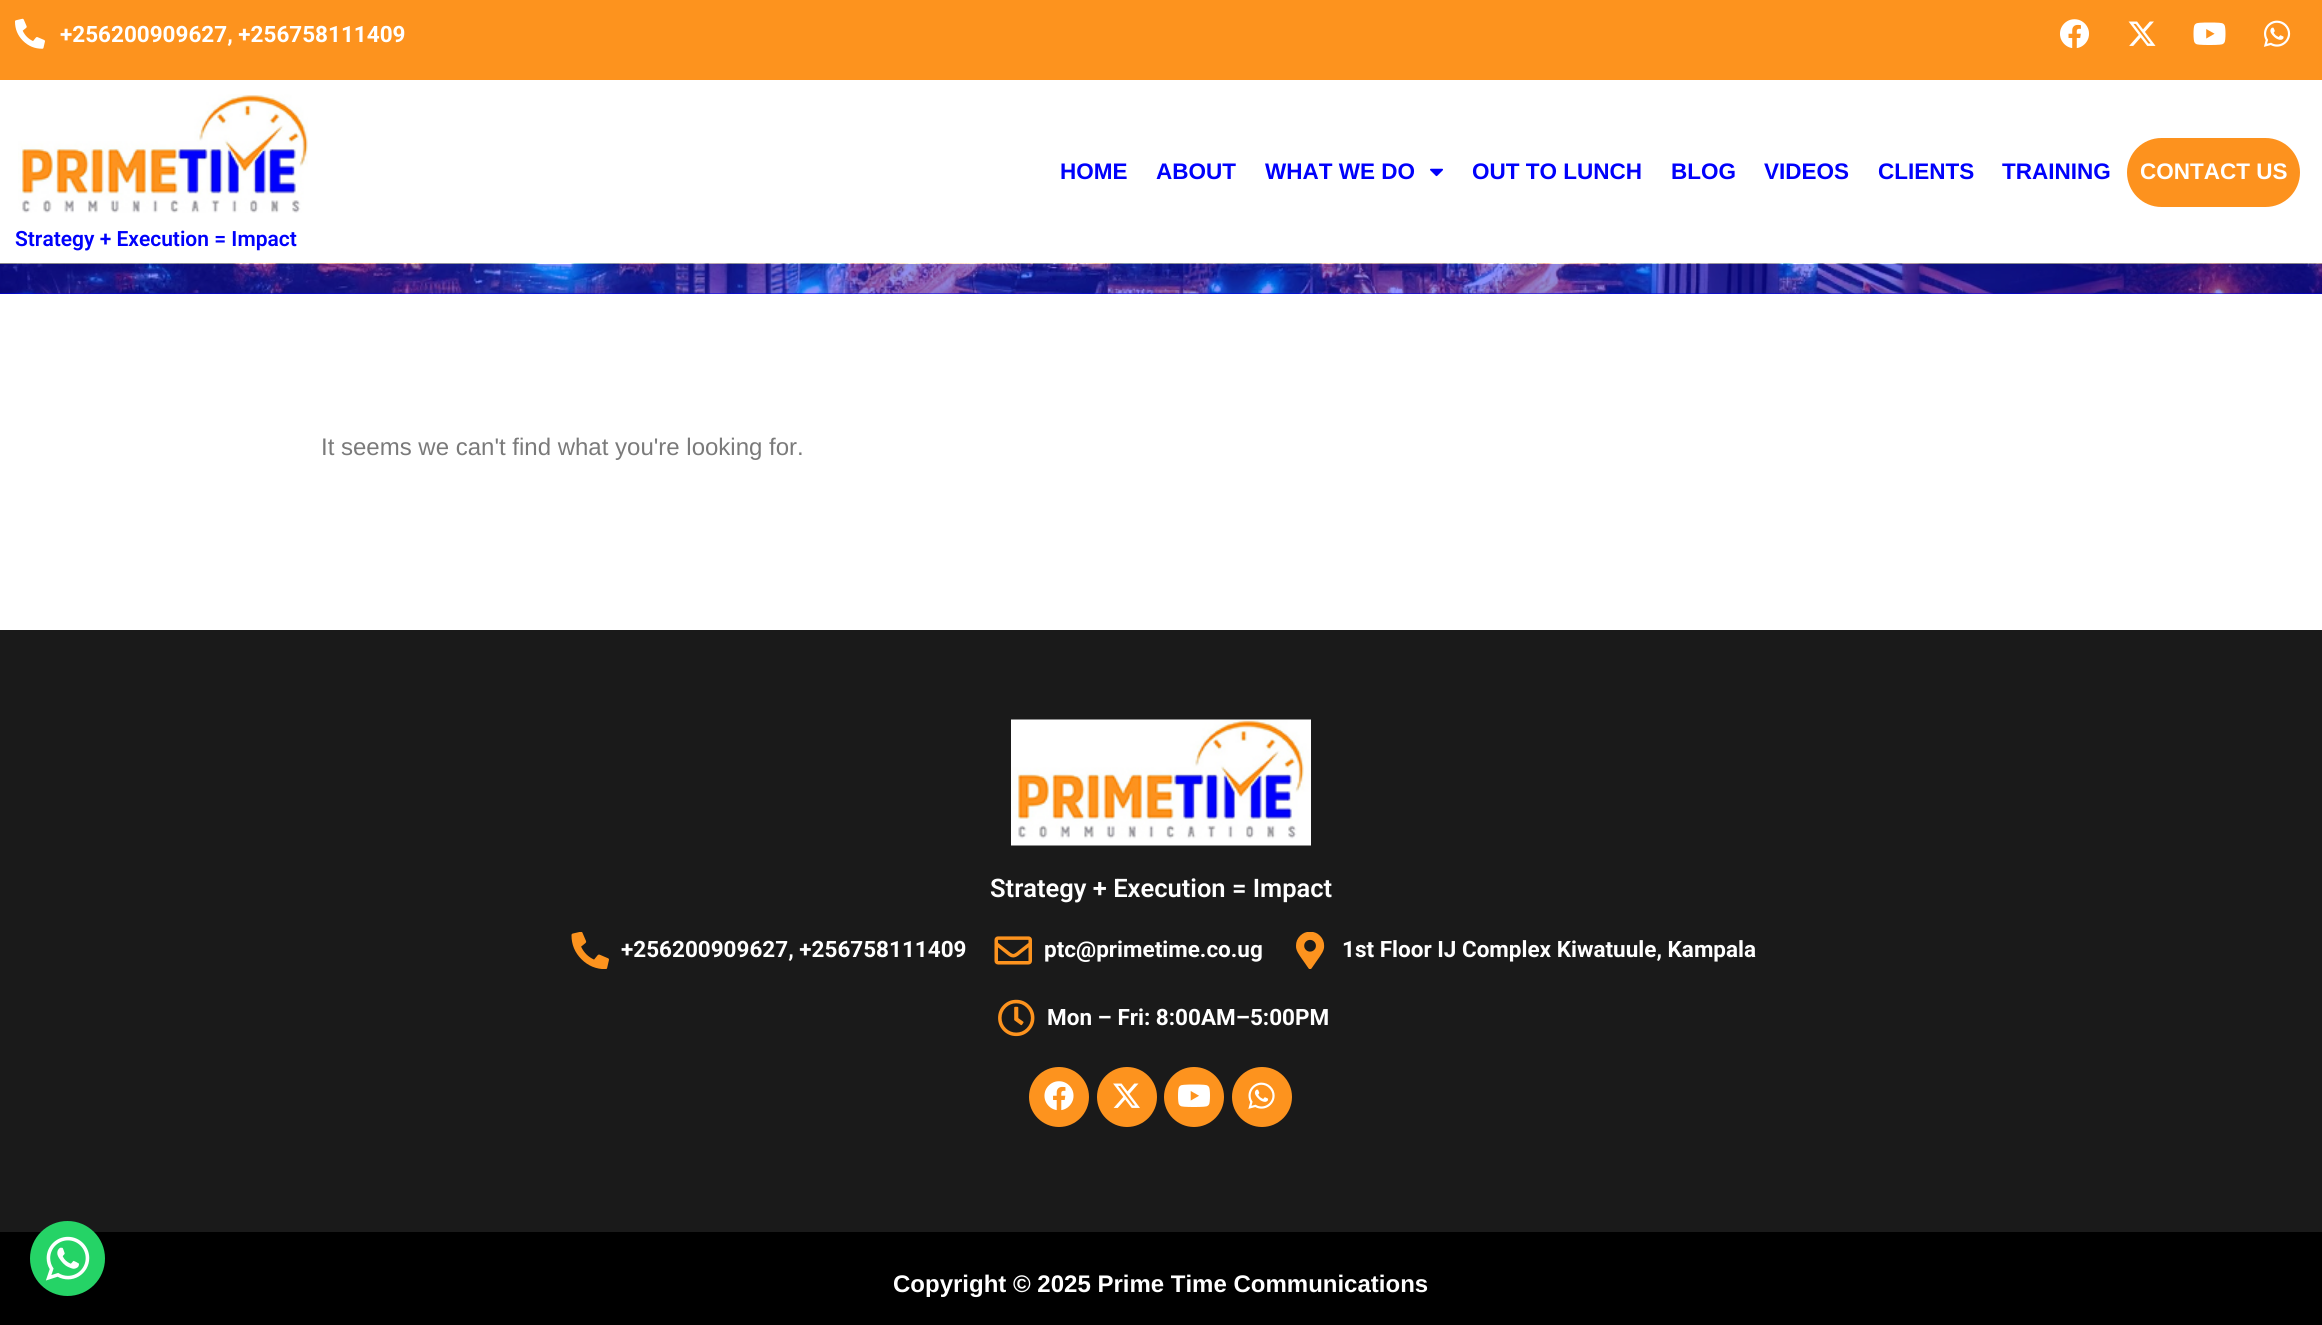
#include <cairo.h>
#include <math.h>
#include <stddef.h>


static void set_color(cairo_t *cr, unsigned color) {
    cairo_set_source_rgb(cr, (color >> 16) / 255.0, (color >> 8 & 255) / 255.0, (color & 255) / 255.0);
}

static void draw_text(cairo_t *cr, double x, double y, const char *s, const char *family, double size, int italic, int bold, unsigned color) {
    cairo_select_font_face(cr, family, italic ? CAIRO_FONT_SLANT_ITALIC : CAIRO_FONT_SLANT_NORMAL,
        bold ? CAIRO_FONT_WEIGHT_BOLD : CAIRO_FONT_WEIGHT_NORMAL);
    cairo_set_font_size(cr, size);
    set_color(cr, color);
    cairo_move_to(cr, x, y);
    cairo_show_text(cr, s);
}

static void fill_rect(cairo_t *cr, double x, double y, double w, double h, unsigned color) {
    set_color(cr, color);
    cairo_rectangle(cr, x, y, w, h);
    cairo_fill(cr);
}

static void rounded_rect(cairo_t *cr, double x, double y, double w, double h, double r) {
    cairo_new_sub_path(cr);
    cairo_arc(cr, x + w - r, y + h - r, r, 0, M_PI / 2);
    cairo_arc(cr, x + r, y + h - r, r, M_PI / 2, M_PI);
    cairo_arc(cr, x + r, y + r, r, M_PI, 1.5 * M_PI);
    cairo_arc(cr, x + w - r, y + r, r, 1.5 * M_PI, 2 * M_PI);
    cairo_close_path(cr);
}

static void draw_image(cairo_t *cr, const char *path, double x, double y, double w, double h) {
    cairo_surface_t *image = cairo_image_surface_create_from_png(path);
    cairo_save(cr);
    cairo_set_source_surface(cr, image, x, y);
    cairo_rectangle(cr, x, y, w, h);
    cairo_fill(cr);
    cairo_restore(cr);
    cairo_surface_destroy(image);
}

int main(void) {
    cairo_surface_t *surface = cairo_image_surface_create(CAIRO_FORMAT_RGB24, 2322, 1325);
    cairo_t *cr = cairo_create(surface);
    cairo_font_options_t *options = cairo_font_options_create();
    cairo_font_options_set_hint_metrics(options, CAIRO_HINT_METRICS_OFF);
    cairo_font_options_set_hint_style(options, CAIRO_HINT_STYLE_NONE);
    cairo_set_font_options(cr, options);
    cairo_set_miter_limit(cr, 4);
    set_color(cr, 0xFFFFFF);
    cairo_paint(cr);
    fill_rect(cr, 0, 0, 2322, 80, 0xFD931E);
    draw_image(cr, "assets/img1.png", 15, 18, 30, 31);
    draw_text(cr, 60, 42, "+256200909627, +256758111409", "Roboto", 22.5, 0, 1, 0xFFFFFF);
    draw_image(cr, "assets/img2.png", 2060, 19, 29, 29);
    draw_image(cr, "assets/img3.png", 2128, 21, 28, 25);
    draw_image(cr, "assets/img4.png", 2193, 22, 33, 23);
    draw_image(cr, "assets/img5.png", 2263, 20, 28, 27);
    draw_text(cr, 1060, 179, "HOME", "Liberation Sans", 22.5, 0, 1, 0x0001FB);
    draw_text(cr, 1156, 179, "ABOUT", "Liberation Sans", 22.5, 0, 1, 0x0001FB);
    draw_text(cr, 1265, 179, "WHAT WE DO", "Liberation Sans", 22.5, 0, 1, 0x0001FB);
    draw_image(cr, "assets/img6.png", 1430, 168, 13, 9);
    draw_text(cr, 1472, 179, "OUT TO LUNCH", "Liberation Sans", 22.5, 0, 1, 0x0001FB);
    draw_text(cr, 1671, 179, "BLOG", "Liberation Sans", 22.5, 0, 1, 0x0001FB);
    draw_text(cr, 1764, 179, "VIDEOS", "Liberation Sans", 22.5, 0, 1, 0x0001FB);
    draw_text(cr, 1878, 179, "CLIENTS", "Liberation Sans", 22.5, 0, 1, 0x0001FB);
    draw_text(cr, 2002, 179, "TRAINING", "Liberation Sans", 22.5, 0, 1, 0x0001FB);
    set_color(cr, 0xFD921E);
    rounded_rect(cr, 2127, 138, 173, 69, 34.5);
    cairo_fill(cr);
    draw_text(cr, 2140, 179, "CONTACT US", "Liberation Sans", 22.5, 0, 1, 0xFFFFFF);
    draw_image(cr, "assets/img7.png", 18, 94, 290, 119);
    draw_text(cr, 15, 246, "Strategy + Execution = Impact", "Roboto SemiBold", 21, 0, 0, 0x0001FB);
    fill_rect(cr, 0, 293, 2322, 1, 0x0001FB);
    draw_image(cr, "assets/img8.png", 0, 263, 2322, 31);
    draw_text(cr, 321, 455, "It seems we can't find what you're looking for.", "Liberation Sans", 24, 0, 0, 0x7A7A7A);
    fill_rect(cr, 0, 630, 2322, 602, 0x1A1A1A);
    fill_rect(cr, 0, 1232, 2322, 93, 0x000000);
    set_color(cr, 0x25D366);
    cairo_new_path(cr);
    cairo_arc(cr, 67.5, 1258.5, 37.5, 0, 2 * M_PI);
    cairo_fill(cr);
    draw_image(cr, "assets/img9.png", 45, 1236, 45, 45);
    draw_image(cr, "assets/img10.png", 1011, 719, 300, 127);
    draw_text(cr, 990, 897, "Strategy + Execution = Impact", "Roboto SemiBold", 25.5, 0, 0, 0xFFFFFF);
    draw_image(cr, "assets/img11.png", 571, 932, 38, 37);
    draw_text(cr, 621, 957, "+256200909627, +256758111409", "Roboto", 22.5, 0, 1, 0xFFFFFF);
    draw_image(cr, "assets/img12.png", 994, 936, 38, 29);
    draw_text(cr, 1044, 957, "ptc@primetime.co.ug", "Roboto", 22.5, 0, 1, 0xFFFFFF);
    draw_image(cr, "assets/img13.png", 1296, 932, 29, 37);
    draw_text(cr, 1342, 957, "1st Floor IJ Complex Kiwatuule, Kampala", "Roboto", 22.5, 0, 1, 0xFFFFFF);
    draw_image(cr, "assets/img14.png", 998, 999, 37, 38);
    draw_text(cr, 1047, 1025, "Mon – Fri: 8:00AM–5:00PM", "Roboto", 22.5, 0, 1, 0xFFFFFF);
    set_color(cr, 0xFD931E);
    cairo_new_path(cr);
    cairo_arc(cr, 1059, 1097, 30, 0, 2 * M_PI);
    cairo_fill(cr);
    draw_image(cr, "assets/img15.png", 1044, 1081, 30, 30);
    cairo_arc(cr, 1127, 1097, 30, 0, 2 * M_PI);
    cairo_fill(cr);
    draw_image(cr, "assets/img16.png", 1113, 1083, 27, 25);
    cairo_arc(cr, 1194, 1097, 30, 0, 2 * M_PI);
    cairo_fill(cr);
    draw_image(cr, "assets/img17.png", 1178, 1084, 32, 23);
    cairo_arc(cr, 1262, 1097, 30, 0, 2 * M_PI);
    cairo_fill(cr);
    draw_image(cr, "assets/img18.png", 1248, 1082, 27, 27);
    draw_text(cr, 893, 1292, "Copyright © 2025 Prime Time Communications", "Liberation Sans", 24, 0, 1, 0xFFFFFF);
    cairo_surface_write_to_png(surface, "output.png");
    cairo_font_options_destroy(options);
    cairo_destroy(cr);
    cairo_surface_destroy(surface);
    return 0;
}
